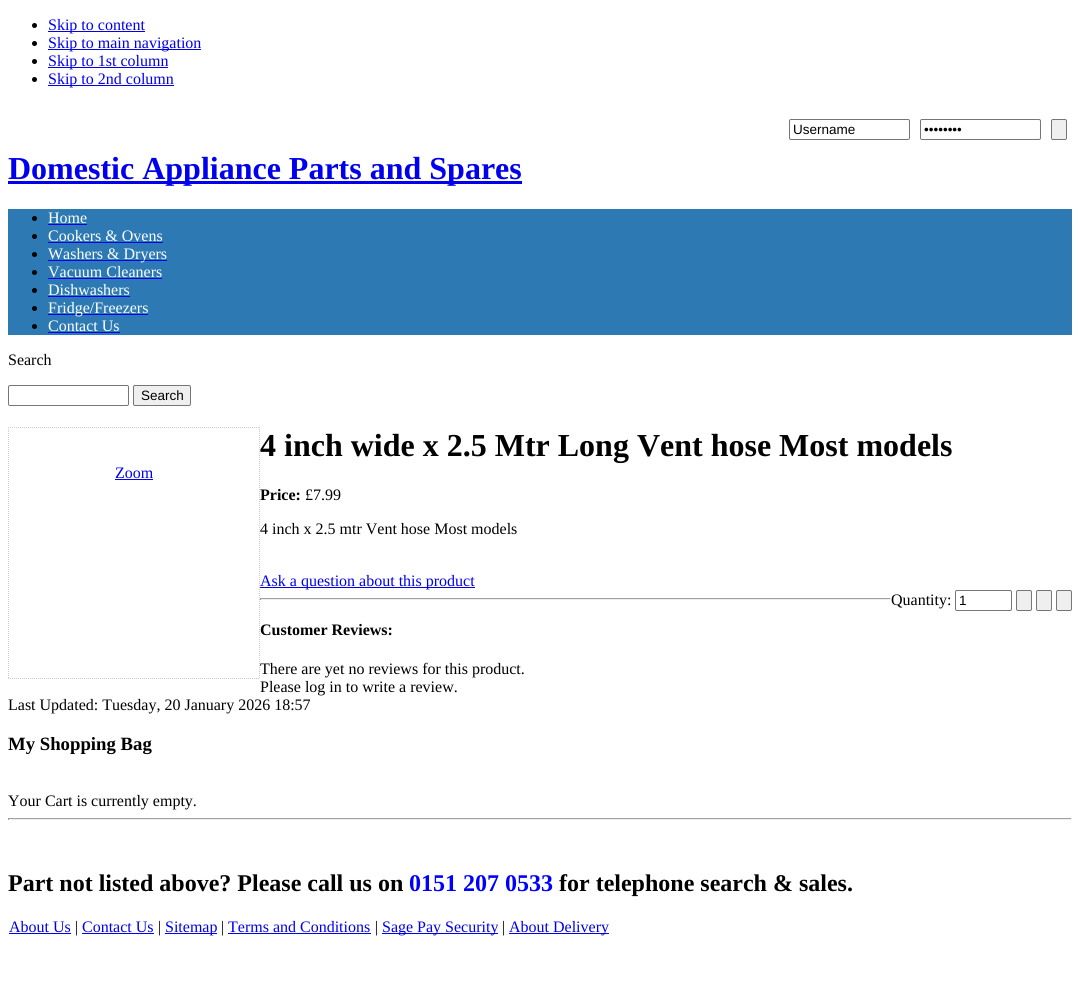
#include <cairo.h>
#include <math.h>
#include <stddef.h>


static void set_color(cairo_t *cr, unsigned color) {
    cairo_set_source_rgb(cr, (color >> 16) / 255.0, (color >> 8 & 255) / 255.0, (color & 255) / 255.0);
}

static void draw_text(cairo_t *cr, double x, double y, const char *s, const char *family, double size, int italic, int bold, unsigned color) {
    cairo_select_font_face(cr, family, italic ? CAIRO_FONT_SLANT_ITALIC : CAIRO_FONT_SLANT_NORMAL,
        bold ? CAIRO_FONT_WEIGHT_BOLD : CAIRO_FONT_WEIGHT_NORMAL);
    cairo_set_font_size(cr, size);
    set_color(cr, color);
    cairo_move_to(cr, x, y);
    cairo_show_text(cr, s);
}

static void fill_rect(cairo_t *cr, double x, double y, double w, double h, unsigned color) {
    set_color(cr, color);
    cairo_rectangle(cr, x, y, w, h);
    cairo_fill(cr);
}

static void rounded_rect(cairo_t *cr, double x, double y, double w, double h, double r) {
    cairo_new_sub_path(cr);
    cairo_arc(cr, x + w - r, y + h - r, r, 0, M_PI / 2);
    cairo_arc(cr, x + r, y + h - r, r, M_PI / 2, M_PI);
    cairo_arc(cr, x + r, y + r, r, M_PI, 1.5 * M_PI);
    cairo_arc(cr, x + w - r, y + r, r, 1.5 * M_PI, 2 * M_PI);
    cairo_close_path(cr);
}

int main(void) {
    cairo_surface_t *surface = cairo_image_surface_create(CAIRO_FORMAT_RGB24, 1080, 988);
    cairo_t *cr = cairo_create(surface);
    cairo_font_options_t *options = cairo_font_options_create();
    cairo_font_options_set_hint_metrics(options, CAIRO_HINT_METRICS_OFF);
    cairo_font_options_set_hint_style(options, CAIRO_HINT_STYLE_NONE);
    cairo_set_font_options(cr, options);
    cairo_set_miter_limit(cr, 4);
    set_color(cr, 0xFFFFFF);
    cairo_paint(cr);
    set_color(cr, 0x000000);
    cairo_arc(cr, 34.5, 25.5, 2.5, 0, 2 * M_PI);
    cairo_fill(cr);
    fill_rect(cr, 48, 31, 97, 1, 0x0000EE);
    draw_text(cr, 48, 30, "Skip to content", "Liberation Serif", 16, 0, 0, 0x0000EE);
    set_color(cr, 0x000000);
    cairo_new_path(cr);
    cairo_arc(cr, 34.5, 43.5, 2.5, 0, 2 * M_PI);
    cairo_fill(cr);
    fill_rect(cr, 48, 49, 153, 1, 0x0000EE);
    draw_text(cr, 48, 48, "Skip to main navigation", "Liberation Serif", 16, 0, 0, 0x0000EE);
    set_color(cr, 0x000000);
    cairo_new_path(cr);
    cairo_arc(cr, 34.5, 61.5, 2.5, 0, 2 * M_PI);
    cairo_fill(cr);
    fill_rect(cr, 48, 67, 120, 1, 0x0000EE);
    draw_text(cr, 48, 66, "Skip to 1st column", "Liberation Serif", 16, 0, 0, 0x0000EE);
    set_color(cr, 0x000000);
    cairo_new_path(cr);
    cairo_arc(cr, 34.5, 79.5, 2.5, 0, 2 * M_PI);
    cairo_fill(cr);
    fill_rect(cr, 48, 85, 126, 1, 0x0000EE);
    draw_text(cr, 48, 84, "Skip to 2nd column", "Liberation Serif", 16, 0, 0, 0x0000EE);
    rounded_rect(cr, 789.5, 119.5, 120, 20, 1.5);
    set_color(cr, 0x767676);
    cairo_set_line_width(cr, 1);
    cairo_stroke(cr);
    draw_text(cr, 793, 134, "Username", "Liberation Sans", 13.5, 0, 0, 0x000000);
    rounded_rect(cr, 920.5, 119.5, 120, 20, 1.5);
    set_color(cr, 0x767676);
    cairo_stroke(cr);
    draw_text(cr, 924, 134, "••••••••", "Liberation Sans", 13.5, 0, 0, 0x000000);
    set_color(cr, 0xEFEFEF);
    rounded_rect(cr, 1051.5, 119.5, 15, 20, 1.5);
    cairo_fill_preserve(cr);
    set_color(cr, 0x767676);
    cairo_stroke(cr);
    fill_rect(cr, 8, 181, 514, 3, 0x0000EE);
    draw_text(cr, 8, 179, "Domestic Appliance Parts and Spares", "Liberation Serif", 32, 0, 1, 0x0000EE);
    fill_rect(cr, 8, 209, 1064, 126, 0x2C79B3);
    set_color(cr, 0x000000);
    cairo_new_path(cr);
    cairo_arc(cr, 34.5, 218.5, 2.5, 0, 2 * M_PI);
    cairo_fill(cr);
    draw_text(cr, 48, 223, "Home", "Liberation Serif", 16, 0, 0, 0xFFFFFF);
    fill_rect(cr, 48, 224, 39, 1, 0x0000EE);
    set_color(cr, 0x000000);
    cairo_new_path(cr);
    cairo_arc(cr, 34.5, 236.5, 2.5, 0, 2 * M_PI);
    cairo_fill(cr);
    draw_text(cr, 48, 241, "Cookers & Ovens", "Liberation Serif", 16, 0, 0, 0xFFFFFF);
    fill_rect(cr, 48, 242, 115, 1, 0x0000EE);
    set_color(cr, 0x000000);
    cairo_new_path(cr);
    cairo_arc(cr, 34.5, 254.5, 2.5, 0, 2 * M_PI);
    cairo_fill(cr);
    fill_rect(cr, 48, 260, 119, 1, 0x0000EE);
    draw_text(cr, 48, 259, "Washers & Dryers", "Liberation Serif", 16, 0, 0, 0xFFFFFF);
    set_color(cr, 0x000000);
    cairo_new_path(cr);
    cairo_arc(cr, 34.5, 272.5, 2.5, 0, 2 * M_PI);
    cairo_fill(cr);
    draw_text(cr, 48, 277, "Vacuum Cleaners", "Liberation Serif", 16, 0, 0, 0xFFFFFF);
    fill_rect(cr, 48, 278, 114, 1, 0x0000EE);
    set_color(cr, 0x000000);
    cairo_new_path(cr);
    cairo_arc(cr, 34.5, 290.5, 2.5, 0, 2 * M_PI);
    cairo_fill(cr);
    draw_text(cr, 48, 295, "Dishwashers", "Liberation Serif", 16, 0, 0, 0xFFFFFF);
    fill_rect(cr, 48, 296, 82, 1, 0x0000EE);
    set_color(cr, 0x000000);
    cairo_new_path(cr);
    cairo_arc(cr, 34.5, 308.5, 2.5, 0, 2 * M_PI);
    cairo_fill(cr);
    fill_rect(cr, 48, 314, 100, 1, 0x0000EE);
    draw_text(cr, 48, 313, "Fridge/Freezers", "Liberation Serif", 16, 0, 0, 0xFFFFFF);
    set_color(cr, 0x000000);
    cairo_new_path(cr);
    cairo_arc(cr, 34.5, 326.5, 2.5, 0, 2 * M_PI);
    cairo_fill(cr);
    draw_text(cr, 48, 331, "Contact Us", "Liberation Serif", 16, 0, 0, 0xFFFFFF);
    fill_rect(cr, 48, 332, 72, 1, 0x0000EE);
    draw_text(cr, 8, 365, "Search", "Liberation Serif", 16, 0, 0, 0x000000);
    rounded_rect(cr, 8.5, 385.5, 120, 20, 1.5);
    set_color(cr, 0x767676);
    cairo_stroke(cr);
    set_color(cr, 0xEFEFEF);
    rounded_rect(cr, 133.5, 385.5, 57, 20, 1.5);
    cairo_fill_preserve(cr);
    set_color(cr, 0x767676);
    cairo_stroke(cr);
    draw_text(cr, 141, 400, "Search", "Liberation Sans", 13.5, 0, 0, 0x000000);
    draw_text(cr, 260, 456, "4 inch wide x 2.5 Mtr Long Vent hose Most models", "Liberation Serif", 32, 0, 1, 0x000000);
    cairo_new_path(cr);
    cairo_move_to(cr, 8, 427.5);
    cairo_line_to(cr, 260, 427.5);
    set_color(cr, 0xCCCCCC);
    cairo_set_dash(cr, (double[]){1, 1}, 2, 0);
    cairo_stroke(cr);
    cairo_new_path(cr);
    cairo_move_to(cr, 259.5, 427);
    cairo_line_to(cr, 259.5, 679);
    cairo_stroke(cr);
    cairo_new_path(cr);
    cairo_move_to(cr, 8, 678.5);
    cairo_line_to(cr, 260, 678.5);
    cairo_stroke(cr);
    cairo_new_path(cr);
    cairo_move_to(cr, 8.5, 427);
    cairo_line_to(cr, 8.5, 679);
    cairo_stroke(cr);
    draw_text(cr, 115, 478, "Zoom", "Liberation Serif", 16, 0, 0, 0x0000EE);
    fill_rect(cr, 115, 479, 38, 1, 0x0000EE);
    draw_text(cr, 260, 500, "Price:", "Liberation Serif", 16, 0, 1, 0x000000);
    draw_text(cr, 305, 500, "£7.99", "Liberation Serif", 16, 0, 0, 0x000000);
    draw_text(cr, 260, 534, "4 inch x 2.5 mtr Vent hose Most models", "Liberation Serif", 16, 0, 0, 0x000000);
    fill_rect(cr, 260, 587, 215, 1, 0x0000EE);
    draw_text(cr, 260, 586, "Ask a question about this product", "Liberation Serif", 16, 0, 0, 0x0000EE);
    draw_text(cr, 891, 605, "Quantity:", "Liberation Serif", 16, 0, 0, 0x000000);
    rounded_rect(cr, 955.5, 590.5, 56, 20, 1.5);
    set_color(cr, 0x767676);
    cairo_set_dash(cr, NULL, 0, 0);
    cairo_stroke(cr);
    draw_text(cr, 959, 605, "1", "Liberation Sans", 13.5, 0, 0, 0x000000);
    set_color(cr, 0xEFEFEF);
    rounded_rect(cr, 1016.5, 590.5, 15, 20, 1.5);
    cairo_fill_preserve(cr);
    set_color(cr, 0x767676);
    cairo_stroke(cr);
    set_color(cr, 0xEFEFEF);
    rounded_rect(cr, 1036.5, 590.5, 15, 20, 1.5);
    cairo_fill_preserve(cr);
    set_color(cr, 0x767676);
    cairo_stroke(cr);
    set_color(cr, 0xEFEFEF);
    rounded_rect(cr, 1056.5, 590.5, 15, 20, 1.5);
    cairo_fill_preserve(cr);
    set_color(cr, 0x767676);
    cairo_stroke(cr);
    fill_rect(cr, 260, 598, 631, 1, 0x9F9F9F);
    fill_rect(cr, 890, 598, 1, 2, 0xEEEEEE);
    fill_rect(cr, 260, 599, 631, 1, 0xEEEEEE);
    fill_rect(cr, 260, 598, 1, 2, 0x9F9F9F);
    draw_text(cr, 260, 635, "Customer Reviews:", "Liberation Serif", 16, 0, 1, 0x000000);
    draw_text(cr, 260, 674, "There are yet no reviews for this product.", "Liberation Serif", 16, 0, 0, 0x000000);
    draw_text(cr, 260, 692, "Please log in to write a review.", "Liberation Serif", 16, 0, 0, 0x000000);
    draw_text(cr, 8, 710, "Last Updated: Tuesday, 20 January 2026 18:57", "Liberation Serif", 16, 0, 0, 0x000000);
    draw_text(cr, 8, 750, "My Shopping Bag", "Liberation Serif", 18.75, 0, 1, 0x000000);
    draw_text(cr, 8, 806, "Your Cart is currently empty.", "Liberation Serif", 16, 0, 0, 0x000000);
    fill_rect(cr, 8, 818, 1064, 1, 0x9F9F9F);
    fill_rect(cr, 1071, 818, 1, 2, 0xEEEEEE);
    fill_rect(cr, 8, 819, 1064, 1, 0xEEEEEE);
    fill_rect(cr, 8, 818, 1, 2, 0x9F9F9F);
    draw_text(cr, 8, 891, "Part not listed above? Please call us on", "Liberation Serif", 24, 0, 1, 0x000000);
    draw_text(cr, 409, 891, "0151 207 0533", "Liberation Serif", 24, 0, 1, 0x0000FF);
    draw_text(cr, 559, 891, "for telephone search & sales.", "Liberation Serif", 24, 0, 1, 0x000000);
    draw_text(cr, 9, 932, "About Us", "Liberation Serif", 16, 0, 0, 0x0000EE);
    fill_rect(cr, 9, 933, 62, 1, 0x0000EE);
    draw_text(cr, 75, 932, "|", "Liberation Serif", 16, 0, 0, 0x000000);
    draw_text(cr, 82, 932, "Contact Us", "Liberation Serif", 16, 0, 0, 0x0000EE);
    fill_rect(cr, 82, 933, 72, 1, 0x0000EE);
    draw_text(cr, 158, 932, "|", "Liberation Serif", 16, 0, 0, 0x000000);
    fill_rect(cr, 165, 933, 52, 1, 0x0000EE);
    draw_text(cr, 165, 932, "Sitemap", "Liberation Serif", 16, 0, 0, 0x0000EE);
    draw_text(cr, 221, 932, "|", "Liberation Serif", 16, 0, 0, 0x000000);
    draw_text(cr, 228, 932, "Terms and Conditions", "Liberation Serif", 16, 0, 0, 0x0000EE);
    fill_rect(cr, 228, 933, 143, 1, 0x0000EE);
    draw_text(cr, 375, 932, "|", "Liberation Serif", 16, 0, 0, 0x000000);
    fill_rect(cr, 382, 933, 116, 1, 0x0000EE);
    draw_text(cr, 382, 932, "Sage Pay Security", "Liberation Serif", 16, 0, 0, 0x0000EE);
    draw_text(cr, 502, 932, "|", "Liberation Serif", 16, 0, 0, 0x000000);
    fill_rect(cr, 509, 933, 100, 1, 0x0000EE);
    draw_text(cr, 509, 932, "About Delivery", "Liberation Serif", 16, 0, 0, 0x0000EE);
    cairo_surface_write_to_png(surface, "output.png");
    cairo_font_options_destroy(options);
    cairo_destroy(cr);
    cairo_surface_destroy(surface);
    return 0;
}
